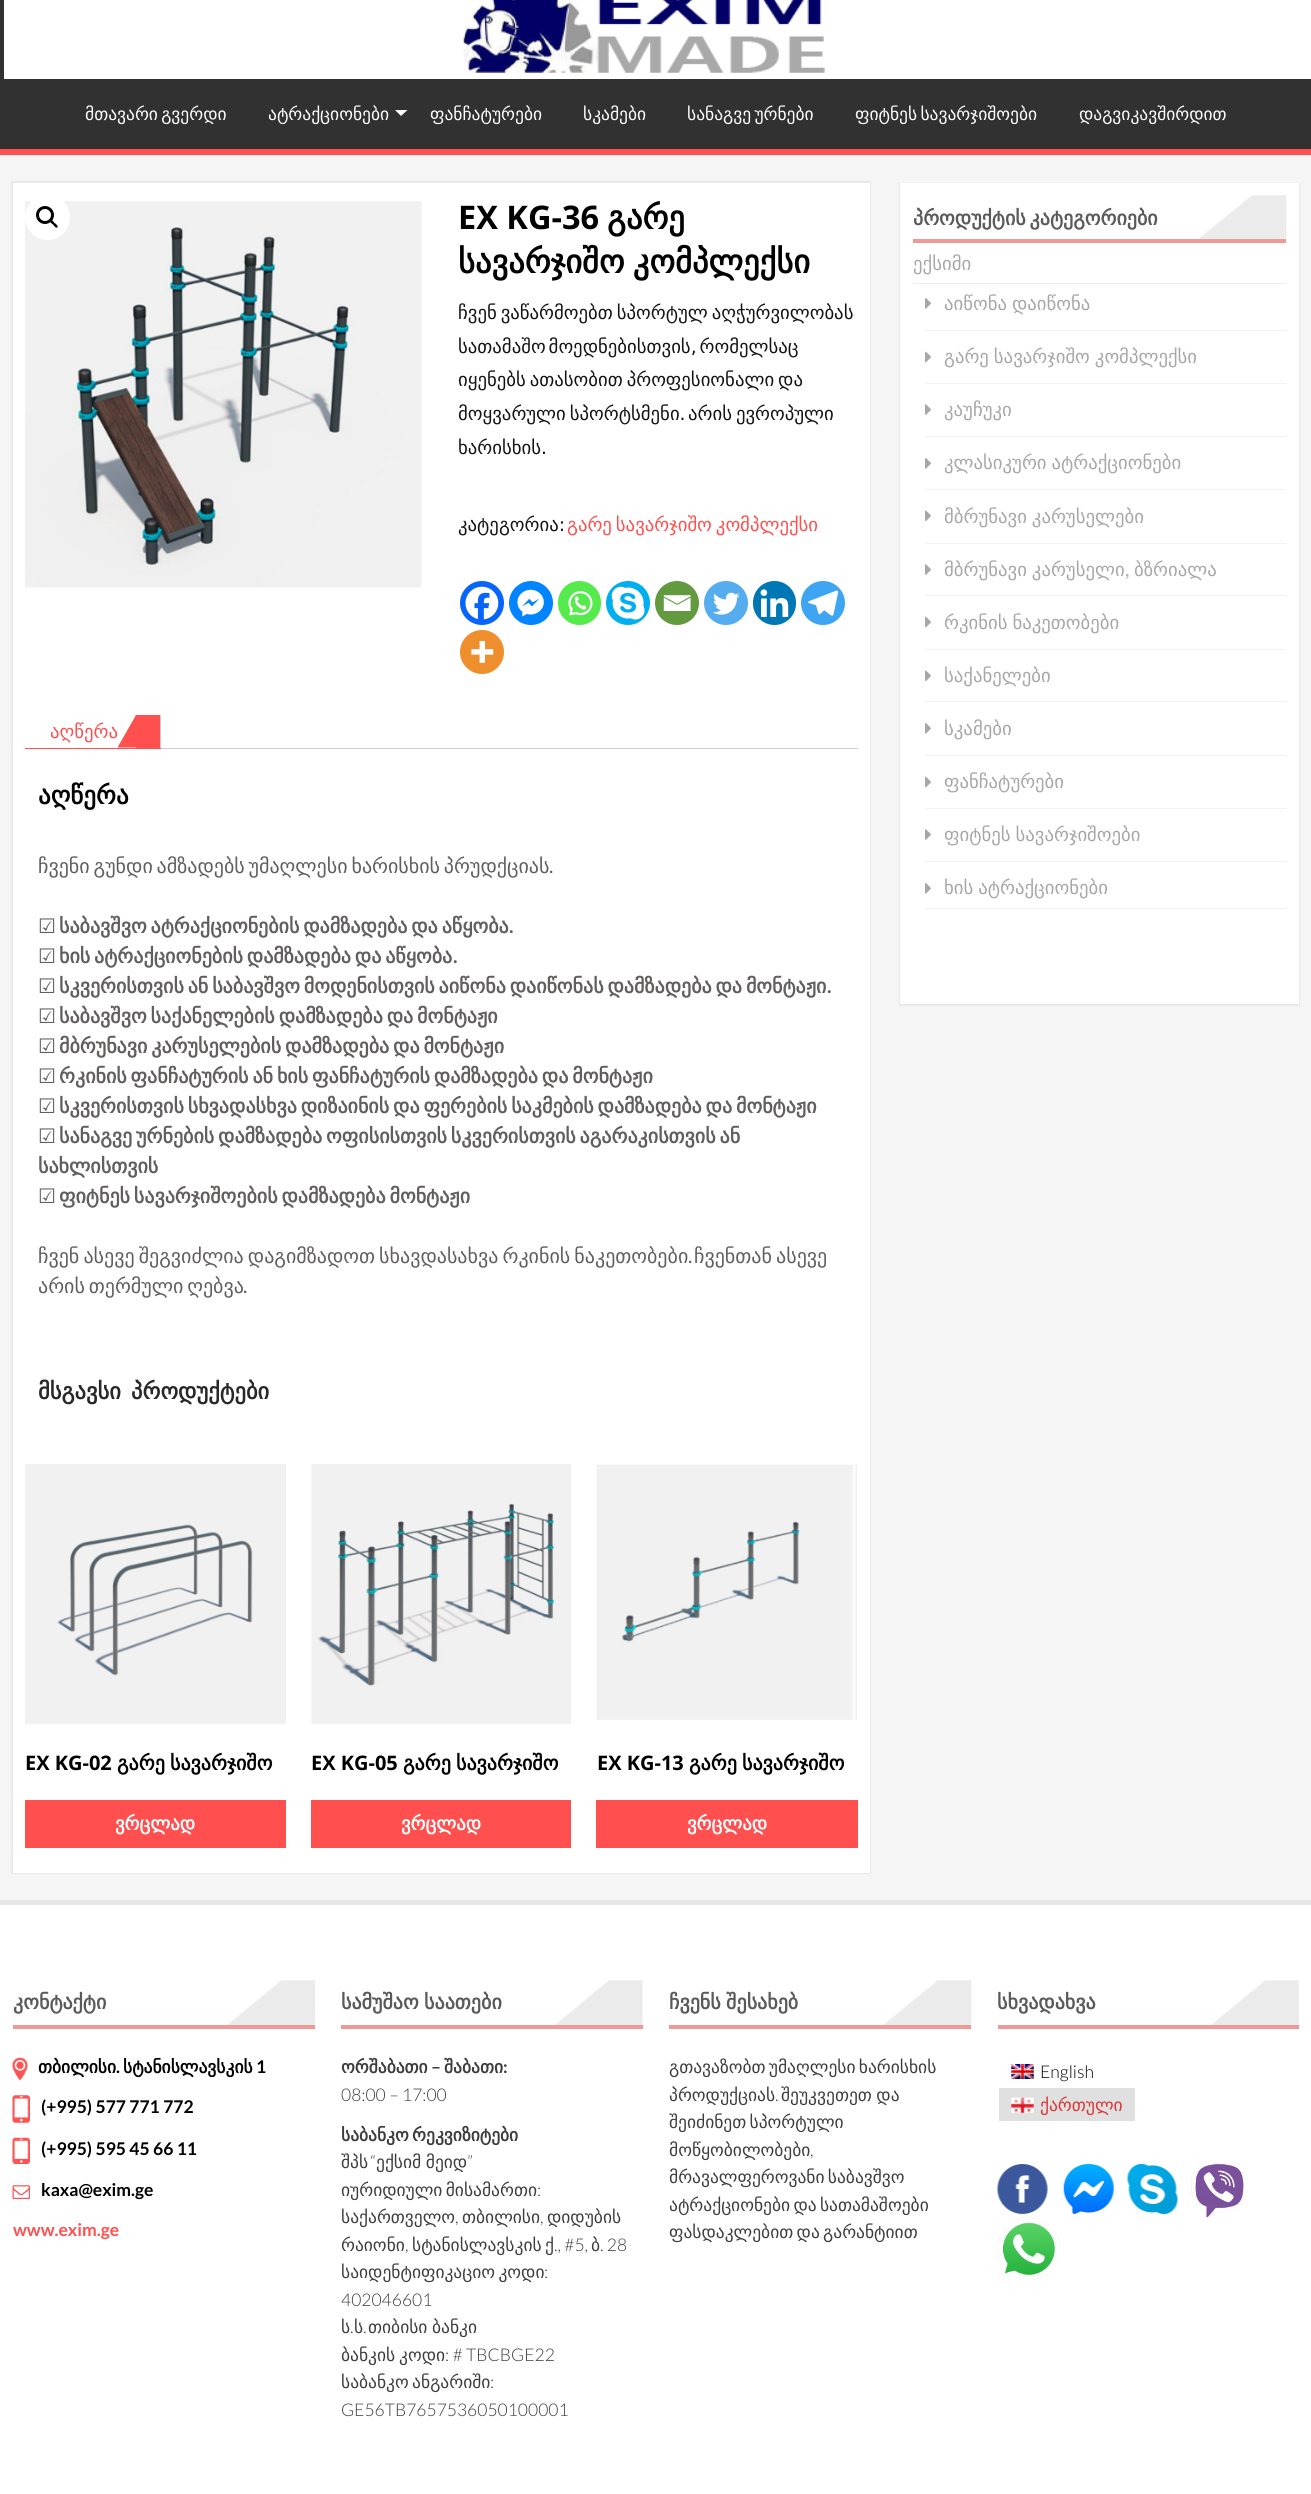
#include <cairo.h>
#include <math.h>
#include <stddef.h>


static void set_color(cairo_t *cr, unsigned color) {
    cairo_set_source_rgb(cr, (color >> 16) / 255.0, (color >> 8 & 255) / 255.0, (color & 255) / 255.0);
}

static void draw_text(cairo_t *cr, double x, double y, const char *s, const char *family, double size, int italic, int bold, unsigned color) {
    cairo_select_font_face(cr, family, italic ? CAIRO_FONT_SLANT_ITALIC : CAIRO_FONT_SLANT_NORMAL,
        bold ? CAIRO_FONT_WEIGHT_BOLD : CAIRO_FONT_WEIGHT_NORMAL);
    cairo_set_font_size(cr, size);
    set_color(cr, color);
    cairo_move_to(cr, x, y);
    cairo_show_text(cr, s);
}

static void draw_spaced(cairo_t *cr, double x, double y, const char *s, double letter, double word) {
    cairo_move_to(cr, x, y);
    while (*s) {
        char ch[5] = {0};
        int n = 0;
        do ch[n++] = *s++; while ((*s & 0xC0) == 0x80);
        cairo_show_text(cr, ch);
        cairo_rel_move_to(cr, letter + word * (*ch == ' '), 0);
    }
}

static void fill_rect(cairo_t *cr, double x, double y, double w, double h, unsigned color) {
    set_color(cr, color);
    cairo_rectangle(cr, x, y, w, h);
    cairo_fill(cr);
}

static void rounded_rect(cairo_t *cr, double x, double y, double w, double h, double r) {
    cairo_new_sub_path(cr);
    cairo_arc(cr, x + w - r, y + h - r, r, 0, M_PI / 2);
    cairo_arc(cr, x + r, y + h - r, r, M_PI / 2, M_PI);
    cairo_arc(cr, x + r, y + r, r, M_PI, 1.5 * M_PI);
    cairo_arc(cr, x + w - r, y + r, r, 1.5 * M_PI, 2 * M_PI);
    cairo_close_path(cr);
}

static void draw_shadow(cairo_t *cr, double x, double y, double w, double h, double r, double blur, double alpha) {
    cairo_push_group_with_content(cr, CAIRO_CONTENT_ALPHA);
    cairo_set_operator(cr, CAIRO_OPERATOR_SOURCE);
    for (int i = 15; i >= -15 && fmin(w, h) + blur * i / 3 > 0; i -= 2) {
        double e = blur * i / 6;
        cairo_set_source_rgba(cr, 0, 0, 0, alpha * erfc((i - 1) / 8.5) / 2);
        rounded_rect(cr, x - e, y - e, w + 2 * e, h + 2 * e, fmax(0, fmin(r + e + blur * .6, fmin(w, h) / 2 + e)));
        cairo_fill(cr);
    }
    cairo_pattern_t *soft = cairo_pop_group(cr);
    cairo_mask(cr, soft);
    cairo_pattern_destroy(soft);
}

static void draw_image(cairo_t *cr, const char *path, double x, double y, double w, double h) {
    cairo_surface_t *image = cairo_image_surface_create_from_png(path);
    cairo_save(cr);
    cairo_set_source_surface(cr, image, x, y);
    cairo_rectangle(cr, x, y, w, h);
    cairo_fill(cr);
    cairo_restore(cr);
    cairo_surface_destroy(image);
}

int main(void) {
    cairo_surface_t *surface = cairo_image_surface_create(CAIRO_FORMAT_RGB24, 1311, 2494);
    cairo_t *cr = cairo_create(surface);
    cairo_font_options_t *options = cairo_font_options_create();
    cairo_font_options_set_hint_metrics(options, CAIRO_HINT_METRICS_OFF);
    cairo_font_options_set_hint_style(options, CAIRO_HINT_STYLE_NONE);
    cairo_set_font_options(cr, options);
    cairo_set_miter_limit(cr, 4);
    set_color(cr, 0xFFFFFF);
    cairo_paint(cr);
    fill_rect(cr, 0, 149, 1311, 6, 0xFF4F4F);
    draw_image(cr, "assets/img1.png", 463, 0, 363, 73);
    fill_rect(cr, 4, 79, 1307, 70, 0x313131);
    fill_rect(cr, 0, 0, 4, 149, 0x313131);
    cairo_select_font_face(cr, "DejaVu Sans", CAIRO_FONT_SLANT_NORMAL, CAIRO_FONT_WEIGHT_NORMAL);
    cairo_set_font_size(cr, 17.5);
    set_color(cr, 0xFFFFFF);
    draw_spaced(cr, 85, 120, "მთავარი გვერდი", 0, -2.25);
    draw_text(cr, 268, 120, "ატრაქციონები", "DejaVu Sans", 17.5, 0, 0, 0xFFFFFF);
    cairo_new_path(cr);
    cairo_move_to(cr, 395, 110);
    cairo_line_to(cr, 407.5, 110);
    cairo_line_to(cr, 401, 116);
    cairo_close_path(cr);
    cairo_fill(cr);
    draw_text(cr, 430, 120, "ფანჩატურები", "DejaVu Sans", 17.5, 0, 0, 0xFFFFFF);
    draw_text(cr, 583, 120, "სკამები", "DejaVu Sans", 17.5, 0, 0, 0xFFFFFF);
    draw_spaced(cr, 687, 120, "სანაგვე ურნები", 0, -2.25);
    draw_spaced(cr, 855, 120, "ფიტნეს სავარჯიშოები", 0, -2.25);
    draw_text(cr, 1079, 120, "დაგვიკავშირდით", "DejaVu Sans", 17.5, 0, 0, 0xFFFFFF);
    fill_rect(cr, 0, 1900, 1311, 5, 0xE7E7E7);
    fill_rect(cr, 0, 155, 1311, 1745, 0xF5F5F5);
    set_color(cr, 0x000000);
    draw_shadow(cr, 11, 181, 860, 1693, 0, 0.5, 0.05);
    fill_rect(cr, 13, 183, 857, 1690, 0xFFFFFF);
    draw_image(cr, "assets/img2.png", 25, 201, 397, 387);
    cairo_arc(cr, 47.5, 217.5, 22.5, 0, 2 * M_PI);
    cairo_fill(cr);
    cairo_arc(cr, 45, 215, 7.5, 0, 2 * M_PI);
    set_color(cr, 0x000000);
    cairo_set_line_width(cr, 3);
    cairo_stroke(cr);
    cairo_new_path(cr);
    cairo_move_to(cr, 50, 220);
    cairo_curve_to(cr, 51.5, 219, 54, 222, 54.5, 223);
    cairo_curve_to(cr, 55.5, 223.5, 58.5, 226, 57.5, 227.5);
    cairo_curve_to(cr, 56, 228.5, 53.5, 225.5, 53, 224.5);
    cairo_curve_to(cr, 52, 224, 49, 221.5, 50, 220);
    cairo_close_path(cr);
    cairo_fill(cr);
    draw_text(cr, 458, 229, "EX KG-36", "Open Sans", 32.5, 0, 1, 0x000000);
    draw_text(cr, 607, 229, "გარე", "DejaVu Sans", 32.5, 0, 1, 0x000000);
    draw_spaced(cr, 458, 273, "სავარჯიშო კომპლექსი", 0, -2);
    cairo_select_font_face(cr, "DejaVu Sans", CAIRO_FONT_SLANT_NORMAL, CAIRO_FONT_WEIGHT_NORMAL);
    cairo_set_font_size(cr, 18.75);
    set_color(cr, 0x141414);
    draw_spaced(cr, 458, 319, "ჩვენ ვაწარმოებთ სპორტულ აღჭურვილობას", 0, -2);
    draw_spaced(cr, 458, 353, "სათამაშო მოედნებისთვის, რომელსაც", 0, -3);
    draw_spaced(cr, 458, 386, "იყენებს ათასობით პროფესიონალი და", 0, -2);
    draw_spaced(cr, 458, 420, "მოყვარული სპორტსმენი.", 0, -2);
    draw_spaced(cr, 688, 420, "არის ევროპული", 0, -2);
    draw_text(cr, 458, 454, "ხარისხის.", "DejaVu Sans", 18.75, 0, 0, 0x141414);
    draw_text(cr, 458, 531, "კატეგორია:", "DejaVu Sans", 18.75, 0, 0, 0x141414);
    set_color(cr, 0xFF4F4F);
    draw_spaced(cr, 567, 531, "გარე სავარჯიშო კომპლექსი", 0, -2);
    set_color(cr, 0x0765FE);
    cairo_new_path(cr);
    cairo_arc(cr, 482, 603, 22, 0, 2 * M_PI);
    cairo_fill(cr);
    draw_image(cr, "assets/img3.png", 465, 586, 34, 34);
    set_color(cr, 0x0084FF);
    cairo_arc(cr, 531, 603, 22, 0, 2 * M_PI);
    cairo_fill(cr);
    draw_image(cr, "assets/img4.png", 517, 589, 27, 28);
    set_color(cr, 0x55EB4C);
    rounded_rect(cr, 558, 581, 43, 44, 21.5);
    cairo_fill(cr);
    draw_image(cr, "assets/img5.png", 568, 591, 25, 25);
    set_color(cr, 0x00AFF0);
    cairo_arc(cr, 628, 603, 22, 0, 2 * M_PI);
    cairo_fill(cr);
    draw_image(cr, "assets/img6.png", 611, 586, 34, 34);
    set_color(cr, 0x649A3F);
    cairo_arc(cr, 677, 603, 22, 0, 2 * M_PI);
    cairo_fill(cr);
    draw_image(cr, "assets/img7.png", 663, 595, 28, 16);
    set_color(cr, 0x55ACEE);
    cairo_arc(cr, 726, 603, 22, 0, 2 * M_PI);
    cairo_fill(cr);
    draw_image(cr, "assets/img8.png", 713, 592, 27, 23);
    set_color(cr, 0x0077B5);
    rounded_rect(cr, 753, 581, 43, 44, 21.5);
    cairo_fill(cr);
    draw_image(cr, "assets/img9.png", 760, 589, 29, 28);
    set_color(cr, 0x3DA5F1);
    cairo_arc(cr, 823, 603, 22, 0, 2 * M_PI);
    cairo_fill(cr);
    draw_image(cr, "assets/img10.png", 808, 590, 31, 26);
    set_color(cr, 0xEE8E2D);
    cairo_arc(cr, 482, 652, 22, 0, 2 * M_PI);
    cairo_fill(cr);
    draw_image(cr, "assets/img11.png", 471, 640, 23, 23);
    fill_rect(cr, 25, 748, 136, 1, 0xFF4F4F);
    draw_text(cr, 50, 738, "აღწერა", "DejaVu Sans", 18.75, 0, 0, 0xFF4F4F);
    cairo_new_path(cr);
    cairo_move_to(cr, 136, 747.5);
    cairo_line_to(cr, 117.5, 747.5);
    cairo_line_to(cr, 136, 715);
    cairo_close_path(cr);
    cairo_fill(cr);
    fill_rect(cr, 136, 715, 24, 33, 0xFF4F4F);
    fill_rect(cr, 160, 715, 1, 33, 0xCFC8D8);
    fill_rect(cr, 161, 748, 697, 1, 0xD3CED2);
    draw_text(cr, 38, 804, "აღწერა", "DejaVu Sans", 25, 0, 1, 0x000000);
    cairo_select_font_face(cr, "DejaVu Sans", CAIRO_FONT_SLANT_NORMAL, CAIRO_FONT_WEIGHT_NORMAL);
    cairo_set_font_size(cr, 20);
    set_color(cr, 0x615E5E);
    draw_spaced(cr, 38, 873, "ჩვენი გუნდი ამზადებს უმაღლესი ხარისხის პრუდქციას", 0, -2.5);
    draw_text(cr, 549, 873, ".", "Lato", 20, 0, 0, 0x615E5E);
    draw_text(cr, 38, 933, "☑", "DejaVu Sans", 20, 0, 0, 0x615E5E);
    cairo_select_font_face(cr, "DejaVu Sans", CAIRO_FONT_SLANT_NORMAL, CAIRO_FONT_WEIGHT_BOLD);
    draw_spaced(cr, 59, 933, "საბავშვო ატრაქციონების დამზადება და აწყობა", 0, -2.5);
    draw_text(cr, 509, 933, ".", "Lato", 20, 0, 1, 0x615E5E);
    draw_text(cr, 38, 963, "☑", "DejaVu Sans", 20, 0, 0, 0x615E5E);
    cairo_select_font_face(cr, "DejaVu Sans", CAIRO_FONT_SLANT_NORMAL, CAIRO_FONT_WEIGHT_BOLD);
    draw_spaced(cr, 59, 963, "ხის ატრაქციონების დამზადება და აწყობა", 0, -2.5);
    draw_text(cr, 453, 963, ".", "Lato", 20, 0, 1, 0x615E5E);
    draw_text(cr, 38, 993, "☑", "DejaVu Sans", 20, 0, 0, 0x615E5E);
    cairo_select_font_face(cr, "DejaVu Sans", CAIRO_FONT_SLANT_NORMAL, CAIRO_FONT_WEIGHT_BOLD);
    draw_spaced(cr, 59, 993, "სკვერისთვის ან საბავშვო მოდენისთვის აიწონა დაიწონას დამზადება და მონტაჟი", 0, -2.5);
    draw_text(cr, 827, 993, ".", "Lato", 20, 0, 1, 0x615E5E);
    draw_text(cr, 38, 1023, "☑", "DejaVu Sans", 20, 0, 0, 0x615E5E);
    cairo_select_font_face(cr, "DejaVu Sans", CAIRO_FONT_SLANT_NORMAL, CAIRO_FONT_WEIGHT_BOLD);
    draw_spaced(cr, 59, 1023, "საბავშვო საქანელების დამზადება და მონტაჟი", 0, -2.5);
    draw_text(cr, 38, 1053, "☑", "DejaVu Sans", 20, 0, 0, 0x615E5E);
    cairo_select_font_face(cr, "DejaVu Sans", CAIRO_FONT_SLANT_NORMAL, CAIRO_FONT_WEIGHT_BOLD);
    draw_spaced(cr, 59, 1053, "მბრუნავი კარუსელების დამზადება და მონტაჟი", 0, -2.5);
    draw_text(cr, 38, 1083, "☑", "DejaVu Sans", 20, 0, 0, 0x615E5E);
    cairo_select_font_face(cr, "DejaVu Sans", CAIRO_FONT_SLANT_NORMAL, CAIRO_FONT_WEIGHT_BOLD);
    draw_spaced(cr, 59, 1083, "რკინის ფანჩატურის ან ხის ფანჩატურის დამზადება და მონტაჟი", 0, -2.5);
    draw_text(cr, 38, 1113, "☑", "DejaVu Sans", 20, 0, 0, 0x615E5E);
    cairo_select_font_face(cr, "DejaVu Sans", CAIRO_FONT_SLANT_NORMAL, CAIRO_FONT_WEIGHT_BOLD);
    draw_spaced(cr, 59, 1113, "სკვერისთვის სხვადასხვა დიზაინის და ფერების საკმების დამზადება და მონტაჟი", 0, -2.5);
    draw_text(cr, 38, 1143, "☑", "DejaVu Sans", 20, 0, 0, 0x615E5E);
    cairo_select_font_face(cr, "DejaVu Sans", CAIRO_FONT_SLANT_NORMAL, CAIRO_FONT_WEIGHT_BOLD);
    draw_spaced(cr, 59, 1143, "სანაგვე ურნების დამზადება ოფისისთვის სკვერისთვის აგარაკისთვის ან", 0, -2.5);
    draw_text(cr, 38, 1173, "სახლისთვის", "DejaVu Sans", 20, 0, 1, 0x615E5E);
    draw_text(cr, 38, 1203, "☑", "DejaVu Sans", 20, 0, 0, 0x615E5E);
    cairo_select_font_face(cr, "DejaVu Sans", CAIRO_FONT_SLANT_NORMAL, CAIRO_FONT_WEIGHT_BOLD);
    draw_spaced(cr, 59, 1203, "ფიტნეს სავარჯიშოების დამზადება მონტაჟი", 0, -2.5);
    cairo_select_font_face(cr, "DejaVu Sans", CAIRO_FONT_SLANT_NORMAL, CAIRO_FONT_WEIGHT_NORMAL);
    draw_spaced(cr, 38, 1263, "ჩვენ ასევე შეგვიძლია დაგიმზადოთ სხავდასახვა რკინის ნაკეთობები", 0, -2.25);
    draw_text(cr, 688, 1263, ".", "Lato", 20, 0, 0, 0x615E5E);
    cairo_select_font_face(cr, "DejaVu Sans", CAIRO_FONT_SLANT_NORMAL, CAIRO_FONT_WEIGHT_NORMAL);
    draw_spaced(cr, 694, 1263, "ჩვენთან ასევე", 0, -2.25);
    draw_spaced(cr, 38, 1293, "არის თერმული ღებვა", 0, -2.5);
    draw_text(cr, 243, 1293, ".", "Lato", 20, 0, 0, 0x615E5E);
    cairo_select_font_face(cr, "DejaVu Sans", CAIRO_FONT_SLANT_NORMAL, CAIRO_FONT_WEIGHT_BOLD);
    cairo_set_font_size(cr, 22.5);
    set_color(cr, 0x282828);
    draw_spaced(cr, 38, 1399, "მსგავსი პროდუქტები", 0, 3);
    draw_image(cr, "assets/img12.png", 25, 1464, 261, 260);
    draw_text(cr, 25, 1770, "EX KG-02", "Open Sans", 20, 0, 1, 0x000000);
    draw_text(cr, 117, 1770, "გარე", "DejaVu Sans", 20, 0, 1, 0x000000);
    draw_text(cr, 170, 1770, "სავარჯიშო", "DejaVu Sans", 20, 0, 1, 0x000000);
    fill_rect(cr, 25, 1800, 261, 48, 0xFF4F4F);
    draw_text(cr, 115, 1830, "ვრცლად", "DejaVu Sans", 18.75, 0, 1, 0xFFFFFF);
    draw_image(cr, "assets/img13.png", 311, 1464, 260, 260);
    draw_text(cr, 311, 1770, "EX KG-05", "Open Sans", 20, 0, 1, 0x000000);
    draw_text(cr, 403, 1770, "გარე", "DejaVu Sans", 20, 0, 1, 0x000000);
    draw_text(cr, 456, 1770, "სავარჯიშო", "DejaVu Sans", 20, 0, 1, 0x000000);
    fill_rect(cr, 311, 1800, 260, 48, 0xFF4F4F);
    draw_text(cr, 401, 1830, "ვრცლად", "DejaVu Sans", 18.75, 0, 1, 0xFFFFFF);
    draw_image(cr, "assets/img14.png", 596, 1464, 261, 256);
    draw_text(cr, 597, 1770, "EX KG-13", "Open Sans", 20, 0, 1, 0x000000);
    draw_text(cr, 689, 1770, "გარე", "DejaVu Sans", 20, 0, 1, 0x000000);
    draw_text(cr, 742, 1770, "სავარჯიშო", "DejaVu Sans", 20, 0, 1, 0x000000);
    fill_rect(cr, 596, 1800, 262, 48, 0xFF4F4F);
    draw_text(cr, 687, 1830, "ვრცლად", "DejaVu Sans", 18.75, 0, 1, 0xFFFFFF);
    set_color(cr, 0x000000);
    draw_shadow(cr, 899, 183, 401, 823, 0, 0.5, 0.05);
    fill_rect(cr, 900, 183, 399, 821, 0xFFFFFF);
    draw_image(cr, "assets/img15.png", 1198, 195, 89, 44);
    fill_rect(cr, 913, 239, 373, 4, 0xEF9999);
    cairo_set_font_size(cr, 20);
    set_color(cr, 0x5A5A5A);
    draw_spaced(cr, 913, 225, "პროდუქტის კატეგორიები", 0, -2.5);
    draw_text(cr, 913, 270, "ექსიმი", "DejaVu Sans", 18.75, 0, 0, 0xA8A7A7);
    fill_rect(cr, 913, 283, 373, 1, 0xEEEEEE);
    fill_rect(cr, 925, 330, 361, 1, 0xF2F2F2);
    draw_image(cr, "assets/img16.png", 925, 298, 6, 11);
    set_color(cr, 0xA8A7A7);
    draw_spaced(cr, 944, 310, "აიწონა დაიწონა", 0, -1);
    fill_rect(cr, 925, 383, 361, 1, 0xF2F2F2);
    draw_image(cr, "assets/img17.png", 925, 351, 6, 12);
    set_color(cr, 0xA8A7A7);
    draw_spaced(cr, 944, 363, "გარე სავარჯიშო კომპლექსი", 0, -1);
    fill_rect(cr, 925, 436, 361, 1, 0xF2F2F2);
    draw_image(cr, "assets/img18.png", 925, 404, 6, 11);
    draw_text(cr, 944, 416, "კაუჩუკი", "DejaVu Sans", 18.75, 0, 0, 0xA8A7A7);
    fill_rect(cr, 925, 489, 361, 1, 0xF2F2F2);
    draw_image(cr, "assets/img16.png", 925, 458, 6, 11);
    set_color(cr, 0xA8A7A7);
    draw_spaced(cr, 944, 469, "კლასიკური ატრაქციონები", 0, -1);
    fill_rect(cr, 925, 543, 361, 1, 0xF2F2F2);
    draw_image(cr, "assets/img19.png", 925, 510, 6, 12);
    set_color(cr, 0xA8A7A7);
    draw_spaced(cr, 944, 523, "მბრუნავი კარუსელები", 0, -1);
    fill_rect(cr, 925, 595, 361, 1, 0xF2F2F2);
    draw_image(cr, "assets/img18.png", 925, 564, 6, 11);
    set_color(cr, 0xA8A7A7);
    draw_spaced(cr, 944, 576, "მბრუნავი კარუსელი", 0, -1);
    draw_text(cr, 1134, 576, "ბზრიალა", "DejaVu Sans", 18.75, 0, 0, 0xA8A7A7);
    draw_text(cr, 1125, 576, ",", "Liberation Serif", 18.75, 0, 0, 0xA8A7A7);
    fill_rect(cr, 925, 649, 361, 1, 0xF2F2F2);
    draw_image(cr, "assets/img17.png", 925, 616, 6, 12);
    cairo_select_font_face(cr, "DejaVu Sans", CAIRO_FONT_SLANT_NORMAL, CAIRO_FONT_WEIGHT_NORMAL);
    set_color(cr, 0xA8A7A7);
    draw_spaced(cr, 944, 629, "რკინის ნაკეთობები", 0, -1);
    fill_rect(cr, 925, 701, 361, 1, 0xF2F2F2);
    draw_image(cr, "assets/img19.png", 925, 670, 6, 12);
    draw_text(cr, 944, 682, "საქანელები", "DejaVu Sans", 18.75, 0, 0, 0xA8A7A7);
    fill_rect(cr, 925, 755, 361, 1, 0xF2F2F2);
    draw_image(cr, "assets/img16.png", 925, 723, 6, 11);
    draw_text(cr, 944, 735, "სკამები", "DejaVu Sans", 18.75, 0, 0, 0xA8A7A7);
    fill_rect(cr, 925, 808, 361, 1, 0xF2F2F2);
    draw_image(cr, "assets/img17.png", 925, 776, 6, 12);
    draw_text(cr, 944, 788, "ფანჩატურები", "DejaVu Sans", 18.75, 0, 0, 0xA8A7A7);
    fill_rect(cr, 925, 861, 361, 1, 0xF2F2F2);
    draw_image(cr, "assets/img18.png", 925, 829, 6, 11);
    set_color(cr, 0xA8A7A7);
    draw_spaced(cr, 944, 841, "ფიტნეს სავარჯიშოები", 0, -1);
    fill_rect(cr, 925, 908, 361, 1, 0xF2F2F2);
    draw_image(cr, "assets/img16.png", 925, 883, 6, 11);
    set_color(cr, 0xA8A7A7);
    draw_spaced(cr, 944, 894, "ხის ატრაქციონები", 0, -1);
    draw_image(cr, "assets/img20.png", 227, 1980, 88, 45);
    fill_rect(cr, 13, 2025, 302, 4, 0xEF9999);
    draw_text(cr, 13, 2009, "კონტაქტი", "DejaVu Sans", 20, 0, 1, 0x5A5A5A);
    draw_image(cr, "assets/img21.png", 12, 2057, 16, 24);
    draw_text(cr, 38, 2073, "თბილისი", "DejaVu Sans", 17.5, 0, 1, 0x000000);
    draw_text(cr, 116, 2073, ".", "Lato", 17.5, 0, 1, 0x000000);
    draw_text(cr, 123, 2073, "სტანისლავსკის", "DejaVu Sans", 17.5, 0, 1, 0x000000);
    draw_text(cr, 256, 2073, "1", "Lato", 17.5, 0, 1, 0x000000);
    draw_image(cr, "assets/img22.png", 12, 2095, 18, 28);
    draw_text(cr, 41, 2113, "(+995) 577 771 772", "Lato", 17.5, 0, 1, 0x000000);
    draw_image(cr, "assets/img23.png", 12, 2137, 18, 27);
    draw_text(cr, 41, 2155, "(+995) 595 45 66 11", "Lato", 17.5, 0, 1, 0x000000);
    draw_image(cr, "assets/img24.png", 12, 2185, 18, 14);
    draw_text(cr, 41, 2196, "kaxa@exim.ge", "Lato", 17.5, 0, 1, 0x000000);
    draw_text(cr, 13, 2236, "www.exim.ge", "Lato", 17.5, 0, 1, 0xFF4F4F);
    draw_image(cr, "assets/img25.png", 555, 1980, 88, 45);
    fill_rect(cr, 341, 2025, 302, 4, 0xEF9999);
    cairo_select_font_face(cr, "DejaVu Sans", CAIRO_FONT_SLANT_NORMAL, CAIRO_FONT_WEIGHT_BOLD);
    cairo_set_font_size(cr, 20);
    set_color(cr, 0x5A5A5A);
    draw_spaced(cr, 341, 2009, "სამუშაო საათები", 0, -1);
    draw_text(cr, 341, 2073, "ორშაბათი", "DejaVu Sans", 17.5, 0, 1, 0x3D3D3D);
    draw_text(cr, 431, 2073, "–", "Lato", 17.5, 0, 1, 0x3D3D3D);
    draw_text(cr, 444, 2073, "შაბათი", "DejaVu Sans", 17.5, 0, 1, 0x3D3D3D);
    draw_text(cr, 503, 2073, ":", "Lato", 17.5, 0, 1, 0x3D3D3D);
    draw_text(cr, 341, 2101, "08:00 – 17:00", "Lato Light", 17.5, 0, 0, 0x3D3D3D);
    cairo_select_font_face(cr, "DejaVu Sans", CAIRO_FONT_SLANT_NORMAL, CAIRO_FONT_WEIGHT_BOLD);
    draw_spaced(cr, 341, 2141, "საბანკო რეკვიზიტები", 0, -2.25);
    draw_text(cr, 341, 2168, "შპს", "DejaVu Sans", 17.5, 0, 0, 0x3D3D3D);
    draw_text(cr, 370, 2168, "“", "Lato Light", 17.5, 0, 0, 0x3D3D3D);
    cairo_select_font_face(cr, "DejaVu Sans", CAIRO_FONT_SLANT_NORMAL, CAIRO_FONT_WEIGHT_NORMAL);
    draw_spaced(cr, 376, 2168, "ექსიმ მეიდ", 0, -1);
    draw_text(cr, 467, 2168, "”", "Lato Light", 17.5, 0, 0, 0x3D3D3D);
    cairo_select_font_face(cr, "DejaVu Sans", CAIRO_FONT_SLANT_NORMAL, CAIRO_FONT_WEIGHT_NORMAL);
    draw_spaced(cr, 341, 2196, "იურიდიული მისამართი", 0, -2.25);
    draw_text(cr, 537, 2196, ":", "Lato Light", 17.5, 0, 0, 0x3D3D3D);
    draw_text(cr, 341, 2223, "საქართველო", "DejaVu Sans", 17.5, 0, 0, 0x3D3D3D);
    draw_text(cr, 455, 2223, ",", "Lato Light", 17.5, 0, 0, 0x3D3D3D);
    draw_text(cr, 462, 2223, "თბილისი", "DejaVu Sans", 17.5, 0, 0, 0x3D3D3D);
    draw_text(cr, 540, 2223, ",", "Lato Light", 17.5, 0, 0, 0x3D3D3D);
    draw_text(cr, 547, 2223, "დიდუბის", "DejaVu Sans", 17.5, 0, 0, 0x3D3D3D);
    draw_text(cr, 341, 2251, "რაიონი", "DejaVu Sans", 17.5, 0, 0, 0x3D3D3D);
    draw_text(cr, 405, 2251, ",", "Lato Light", 17.5, 0, 0, 0x3D3D3D);
    draw_text(cr, 412, 2251, "სტანისლავსკის", "DejaVu Sans", 17.5, 0, 0, 0x3D3D3D);
    draw_text(cr, 545, 2251, "ქ", "DejaVu Sans", 17.5, 0, 0, 0x3D3D3D);
    draw_text(cr, 554, 2251, "., #5,", "Lato Light", 17.5, 0, 0, 0x3D3D3D);
    draw_text(cr, 591, 2251, "ბ", "DejaVu Sans", 17.5, 0, 0, 0x3D3D3D);
    draw_text(cr, 600, 2251, ". 28", "Lato Light", 17.5, 0, 0, 0x3D3D3D);
    cairo_select_font_face(cr, "DejaVu Sans", CAIRO_FONT_SLANT_NORMAL, CAIRO_FONT_WEIGHT_NORMAL);
    draw_spaced(cr, 341, 2278, "საიდენტიფიკაციო კოდი", 0, -2.25);
    draw_text(cr, 544, 2278, ":", "Lato Light", 17.5, 0, 0, 0x3D3D3D);
    draw_text(cr, 341, 2306, "402046601", "Lato Light", 17.5, 0, 0, 0x3D3D3D);
    draw_text(cr, 341, 2333, "ს", "DejaVu Sans", 17.5, 0, 0, 0x3D3D3D);
    draw_text(cr, 350, 2333, ".", "Lato Light", 17.5, 0, 0, 0x3D3D3D);
    draw_text(cr, 354, 2333, "ს", "DejaVu Sans", 17.5, 0, 0, 0x3D3D3D);
    draw_text(cr, 363, 2333, ".", "Lato Light", 17.5, 0, 0, 0x3D3D3D);
    cairo_select_font_face(cr, "DejaVu Sans", CAIRO_FONT_SLANT_NORMAL, CAIRO_FONT_WEIGHT_NORMAL);
    draw_spaced(cr, 368, 2333, "თიბისი ბანკი", 0, -1);
    draw_text(cr, 341, 2361, "ბანკის", "DejaVu Sans", 17.5, 0, 0, 0x3D3D3D);
    draw_text(cr, 399, 2361, "კოდი", "DejaVu Sans", 17.5, 0, 0, 0x3D3D3D);
    draw_text(cr, 445, 2361, ": # TBCBGE22", "Lato Light", 17.5, 0, 0, 0x3D3D3D);
    cairo_select_font_face(cr, "DejaVu Sans", CAIRO_FONT_SLANT_NORMAL, CAIRO_FONT_WEIGHT_NORMAL);
    draw_spaced(cr, 341, 2388, "საბანკო ანგარიში", 0, -2.25);
    draw_text(cr, 490, 2388, ":", "Lato Light", 17.5, 0, 0, 0x3D3D3D);
    draw_text(cr, 341, 2416, "GE56TB7657536050100001", "Lato Light", 17.5, 0, 0, 0x3D3D3D);
    draw_image(cr, "assets/img26.png", 883, 1980, 89, 46);
    fill_rect(cr, 669, 2025, 302, 4, 0xEF9999);
    cairo_select_font_face(cr, "DejaVu Sans", CAIRO_FONT_SLANT_NORMAL, CAIRO_FONT_WEIGHT_BOLD);
    cairo_set_font_size(cr, 20);
    set_color(cr, 0x5A5A5A);
    draw_spaced(cr, 669, 2009, "ჩვენს შესახებ", 0, -1);
    cairo_select_font_face(cr, "DejaVu Sans", CAIRO_FONT_SLANT_NORMAL, CAIRO_FONT_WEIGHT_NORMAL);
    cairo_set_font_size(cr, 17.5);
    set_color(cr, 0x3D3D3D);
    draw_spaced(cr, 669, 2073, "გთავაზობთ უმაღლესი ხარისხის", 0, -2.25);
    draw_text(cr, 669, 2101, "პროდუქციას", "DejaVu Sans", 17.5, 0, 0, 0x3D3D3D);
    draw_text(cr, 775, 2101, ".", "Lato Light", 17.5, 0, 0, 0x3D3D3D);
    cairo_select_font_face(cr, "DejaVu Sans", CAIRO_FONT_SLANT_NORMAL, CAIRO_FONT_WEIGHT_NORMAL);
    draw_spaced(cr, 781, 2101, "შეუკვეთეთ და", 0, -1);
    draw_spaced(cr, 669, 2128, "შეიძინეთ სპორტული", 0, -2.25);
    draw_text(cr, 669, 2156, "მოწყობილობები", "DejaVu Sans", 17.5, 0, 0, 0x3D3D3D);
    draw_text(cr, 810, 2156, ",", "Lato Light", 17.5, 0, 0, 0x3D3D3D);
    cairo_select_font_face(cr, "DejaVu Sans", CAIRO_FONT_SLANT_NORMAL, CAIRO_FONT_WEIGHT_NORMAL);
    draw_spaced(cr, 669, 2183, "მრავალფეროვანი საბავშვო", 0, -2.25);
    draw_spaced(cr, 669, 2211, "ატრაქციონები და სათამაშოები", 0, -2.25);
    draw_spaced(cr, 669, 2238, "ფასდაკლებით და გარანტიით", 0, -2.25);
    draw_image(cr, "assets/img27.png", 1211, 1980, 88, 45);
    fill_rect(cr, 998, 2025, 301, 4, 0xEF9999);
    draw_text(cr, 997, 2009, "სხვადახვა", "DejaVu Sans", 20, 0, 1, 0x5A5A5A);
    draw_image(cr, "assets/img28.png", 1011, 2064, 23, 15);
    draw_text(cr, 1040, 2078, "English", "Lato Light", 17.5, 0, 0, 0x000000);
    fill_rect(cr, 999, 2088, 136, 33, 0xE0E0E0);
    draw_image(cr, "assets/img29.png", 1011, 2097, 23, 16);
    draw_text(cr, 1040, 2111, "ქართული", "DejaVu Sans", 17.5, 0, 0, 0xDD3333);
    draw_image(cr, "assets/img30.png", 997, 2164, 51, 50);
    draw_image(cr, "assets/img31.png", 1063, 2164, 51, 50);
    draw_image(cr, "assets/img32.png", 1127, 2164, 51, 50);
    draw_image(cr, "assets/img33.png", 1191, 2161, 57, 57);
    draw_image(cr, "assets/img34.png", 997, 2218, 63, 62);
    cairo_surface_write_to_png(surface, "output.png");
    cairo_font_options_destroy(options);
    cairo_destroy(cr);
    cairo_surface_destroy(surface);
    return 0;
}
